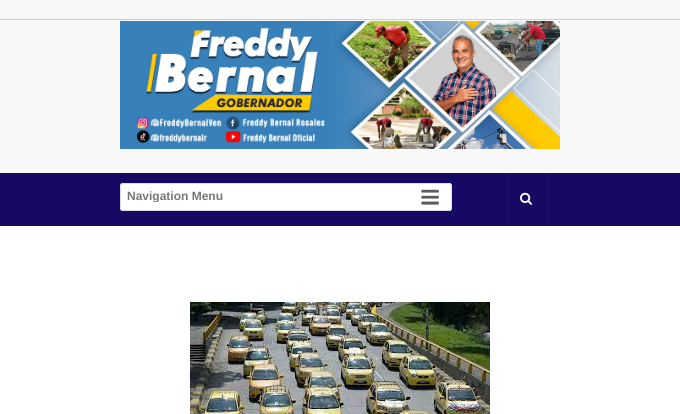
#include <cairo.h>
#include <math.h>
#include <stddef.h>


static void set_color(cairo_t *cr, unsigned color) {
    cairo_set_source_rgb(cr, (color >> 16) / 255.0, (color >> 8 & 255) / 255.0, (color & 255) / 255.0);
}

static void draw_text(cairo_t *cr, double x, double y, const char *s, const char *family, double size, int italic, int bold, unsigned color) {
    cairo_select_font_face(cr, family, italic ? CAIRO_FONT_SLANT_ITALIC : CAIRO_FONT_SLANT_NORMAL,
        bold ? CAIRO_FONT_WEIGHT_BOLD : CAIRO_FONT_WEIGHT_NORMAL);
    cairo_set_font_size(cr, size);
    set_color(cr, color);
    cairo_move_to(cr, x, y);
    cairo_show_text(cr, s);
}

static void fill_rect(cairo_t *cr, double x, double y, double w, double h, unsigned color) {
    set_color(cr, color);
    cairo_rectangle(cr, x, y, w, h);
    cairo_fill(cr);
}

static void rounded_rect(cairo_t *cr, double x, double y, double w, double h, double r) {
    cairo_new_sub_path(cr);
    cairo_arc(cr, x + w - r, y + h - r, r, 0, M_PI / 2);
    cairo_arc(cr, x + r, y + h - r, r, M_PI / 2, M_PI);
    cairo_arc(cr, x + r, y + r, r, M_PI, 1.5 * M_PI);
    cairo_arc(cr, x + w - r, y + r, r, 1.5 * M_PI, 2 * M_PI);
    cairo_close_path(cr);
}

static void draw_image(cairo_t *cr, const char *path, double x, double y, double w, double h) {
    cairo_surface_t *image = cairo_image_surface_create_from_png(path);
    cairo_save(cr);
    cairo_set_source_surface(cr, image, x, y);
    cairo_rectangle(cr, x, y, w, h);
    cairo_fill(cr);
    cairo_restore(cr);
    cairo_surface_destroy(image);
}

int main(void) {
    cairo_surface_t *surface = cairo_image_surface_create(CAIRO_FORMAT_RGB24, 680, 414);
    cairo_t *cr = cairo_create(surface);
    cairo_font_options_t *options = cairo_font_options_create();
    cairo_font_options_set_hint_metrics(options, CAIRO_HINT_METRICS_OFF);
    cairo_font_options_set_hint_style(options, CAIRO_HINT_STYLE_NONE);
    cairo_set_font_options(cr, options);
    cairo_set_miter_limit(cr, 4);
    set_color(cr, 0xFFFFFF);
    cairo_paint(cr);
    fill_rect(cr, 0, 0, 680, 173, 0xF8F8F8);
    fill_rect(cr, 0, 19, 680, 1, 0xCECECE);
    draw_image(cr, "assets/img1.png", 120, 21, 440, 128);
    fill_rect(cr, 0, 173, 680, 53, 0x150964);
    set_color(cr, 0xFFFFFF);
    rounded_rect(cr, 120, 183, 332, 28, 3);
    cairo_fill(cr);
    draw_image(cr, "assets/img2.png", 421, 183, 30, 28);
    rounded_rect(cr, 120.5, 183.5, 331, 27, 2.5);
    set_color(cr, 0xDEDEDE);
    cairo_set_line_width(cr, 1);
    cairo_stroke(cr);
    cairo_save(cr);
    cairo_rectangle(cr, 127, 190, 361, 12);
    cairo_clip(cr);
    draw_text(cr, 127, 200, "Navigation Menu", "Liberation Sans", 12, 0, 1, 0x777777);
    cairo_restore(cr);
    draw_image(cr, "assets/img3.png", 508, 173, 2, 52);
    draw_image(cr, "assets/img3.png", 548, 173, 2, 52);
    draw_image(cr, "assets/img4.png", 520, 192, 12, 13);
    draw_image(cr, "assets/img5.png", 190, 302, 300, 112);
    cairo_surface_write_to_png(surface, "output.png");
    cairo_font_options_destroy(options);
    cairo_destroy(cr);
    cairo_surface_destroy(surface);
    return 0;
}
